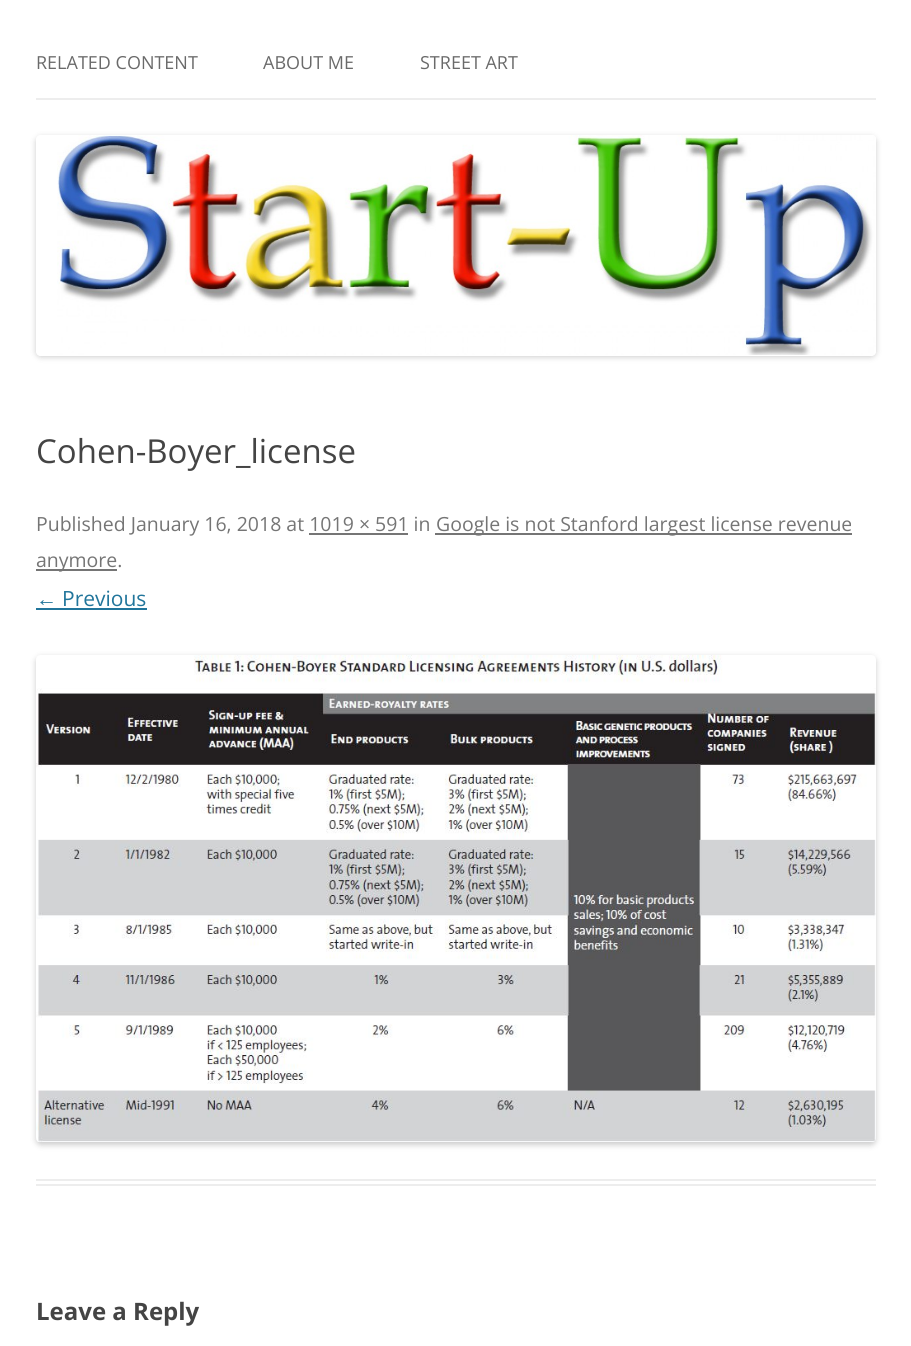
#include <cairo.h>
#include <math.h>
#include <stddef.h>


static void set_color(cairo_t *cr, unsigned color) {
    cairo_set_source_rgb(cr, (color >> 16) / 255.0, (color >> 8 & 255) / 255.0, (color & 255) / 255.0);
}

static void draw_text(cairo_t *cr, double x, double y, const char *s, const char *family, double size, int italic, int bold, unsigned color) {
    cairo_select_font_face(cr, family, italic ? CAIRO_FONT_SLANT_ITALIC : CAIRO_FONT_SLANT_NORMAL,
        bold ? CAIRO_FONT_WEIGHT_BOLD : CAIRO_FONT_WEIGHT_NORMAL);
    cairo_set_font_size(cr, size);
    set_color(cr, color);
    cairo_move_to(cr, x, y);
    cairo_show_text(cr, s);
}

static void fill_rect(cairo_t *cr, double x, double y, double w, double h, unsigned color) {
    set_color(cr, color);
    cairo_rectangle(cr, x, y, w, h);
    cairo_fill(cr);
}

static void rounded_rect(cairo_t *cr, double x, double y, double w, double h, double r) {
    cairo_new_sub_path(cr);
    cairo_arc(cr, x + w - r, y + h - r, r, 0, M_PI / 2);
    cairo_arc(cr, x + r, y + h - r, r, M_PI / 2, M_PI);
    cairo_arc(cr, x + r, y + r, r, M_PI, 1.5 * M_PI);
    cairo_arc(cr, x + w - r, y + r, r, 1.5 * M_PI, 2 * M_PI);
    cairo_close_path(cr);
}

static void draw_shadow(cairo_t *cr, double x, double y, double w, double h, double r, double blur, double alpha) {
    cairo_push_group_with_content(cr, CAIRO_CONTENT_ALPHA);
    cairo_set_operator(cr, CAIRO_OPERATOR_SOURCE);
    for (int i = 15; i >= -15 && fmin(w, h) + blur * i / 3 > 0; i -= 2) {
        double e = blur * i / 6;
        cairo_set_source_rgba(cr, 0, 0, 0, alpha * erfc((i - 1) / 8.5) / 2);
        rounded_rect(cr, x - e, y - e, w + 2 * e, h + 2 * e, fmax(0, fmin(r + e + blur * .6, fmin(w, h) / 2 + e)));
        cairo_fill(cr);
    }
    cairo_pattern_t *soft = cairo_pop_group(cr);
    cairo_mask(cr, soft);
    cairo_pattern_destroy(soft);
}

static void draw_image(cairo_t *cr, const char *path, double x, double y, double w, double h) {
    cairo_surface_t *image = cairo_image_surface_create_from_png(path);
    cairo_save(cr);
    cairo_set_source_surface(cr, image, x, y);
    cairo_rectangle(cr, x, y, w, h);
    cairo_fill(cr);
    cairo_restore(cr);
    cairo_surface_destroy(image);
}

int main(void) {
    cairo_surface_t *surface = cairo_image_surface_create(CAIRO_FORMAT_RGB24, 911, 1346);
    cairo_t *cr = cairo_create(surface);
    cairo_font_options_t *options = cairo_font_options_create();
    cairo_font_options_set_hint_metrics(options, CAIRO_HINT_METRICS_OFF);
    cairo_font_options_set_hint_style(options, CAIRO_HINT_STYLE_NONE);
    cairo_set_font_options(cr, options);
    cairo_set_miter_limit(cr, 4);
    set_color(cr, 0xFFFFFF);
    cairo_paint(cr);
    fill_rect(cr, 36, 98, 840, 2, 0xEDEDED);
    draw_text(cr, 36, 69, "RELATED CONTENT", "Open Sans", 18, 0, 0, 0x6A6A6A);
    draw_text(cr, 263, 69, "ABOUT ME", "Open Sans", 18, 0, 0, 0x6A6A6A);
    draw_text(cr, 420, 69, "STREET ART", "Open Sans", 18, 0, 0, 0x6A6A6A);
    cairo_save(cr);
    cairo_set_fill_rule(cr, CAIRO_FILL_RULE_EVEN_ODD);
    cairo_new_path(cr);
    cairo_move_to(cr, 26, 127);
    cairo_line_to(cr, 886, 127);
    cairo_line_to(cr, 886, 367);
    cairo_line_to(cr, 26, 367);
    cairo_close_path(cr);
    cairo_move_to(cr, 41, 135);
    cairo_line_to(cr, 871, 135);
    cairo_curve_to(cr, 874, 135, 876, 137, 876, 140);
    cairo_line_to(cr, 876, 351);
    cairo_curve_to(cr, 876, 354, 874, 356, 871, 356);
    cairo_line_to(cr, 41, 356);
    cairo_curve_to(cr, 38, 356, 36, 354, 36, 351);
    cairo_line_to(cr, 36, 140);
    cairo_curve_to(cr, 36, 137, 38, 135, 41, 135);
    cairo_close_path(cr);
    cairo_clip(cr);
    set_color(cr, 0x000000);
    draw_shadow(cr, 36, 137, 840, 220, 5, 3, 0.2);
    cairo_restore(cr);
    draw_image(cr, "assets/img1.png", 57, 135, 819, 220);
    fill_rect(cr, 36, 1179, 840, 2, 0xEDEDED);
    fill_rect(cr, 36, 1184, 840, 2, 0xEDEDED);
    draw_text(cr, 36, 463, "Cohen-Boyer_license", "Open Sans", 33, 0, 0, 0x444444);
    draw_text(cr, 36, 531, "Published January 16, 2018 at 1019 × 591 in", "Open Sans", 19.5, 0, 0, 0x757575);
    fill_rect(cr, 435, 533, 417, 2, 0x757575);
    draw_text(cr, 436, 531, "Google is not Stanford largest license revenue", "Open Sans", 19.5, 0, 0, 0x757575);
    fill_rect(cr, 309, 533, 99, 2, 0x757575);
    fill_rect(cr, 36, 569, 81, 2, 0x757575);
    draw_text(cr, 36, 567, "anymore.", "Open Sans", 19.5, 0, 0, 0x757575);
    draw_text(cr, 36, 606, "←", "Liberation Sans", 21, 0, 0, 0x21759B);
    fill_rect(cr, 36, 608, 111, 2, 0x21759B);
    draw_text(cr, 62, 606, "Previous", "Open Sans", 21, 0, 0, 0x21759B);
    set_color(cr, 0x000000);
    draw_shadow(cr, 36, 657, 840, 488, 5, 3, 0.2);
    draw_image(cr, "assets/img2.png", 36, 655, 840, 487);
    draw_text(cr, 36, 1320, "Leave a Reply", "Open Sans", 24, 0, 1, 0x444444);
    cairo_surface_write_to_png(surface, "output.png");
    cairo_font_options_destroy(options);
    cairo_destroy(cr);
    cairo_surface_destroy(surface);
    return 0;
}
